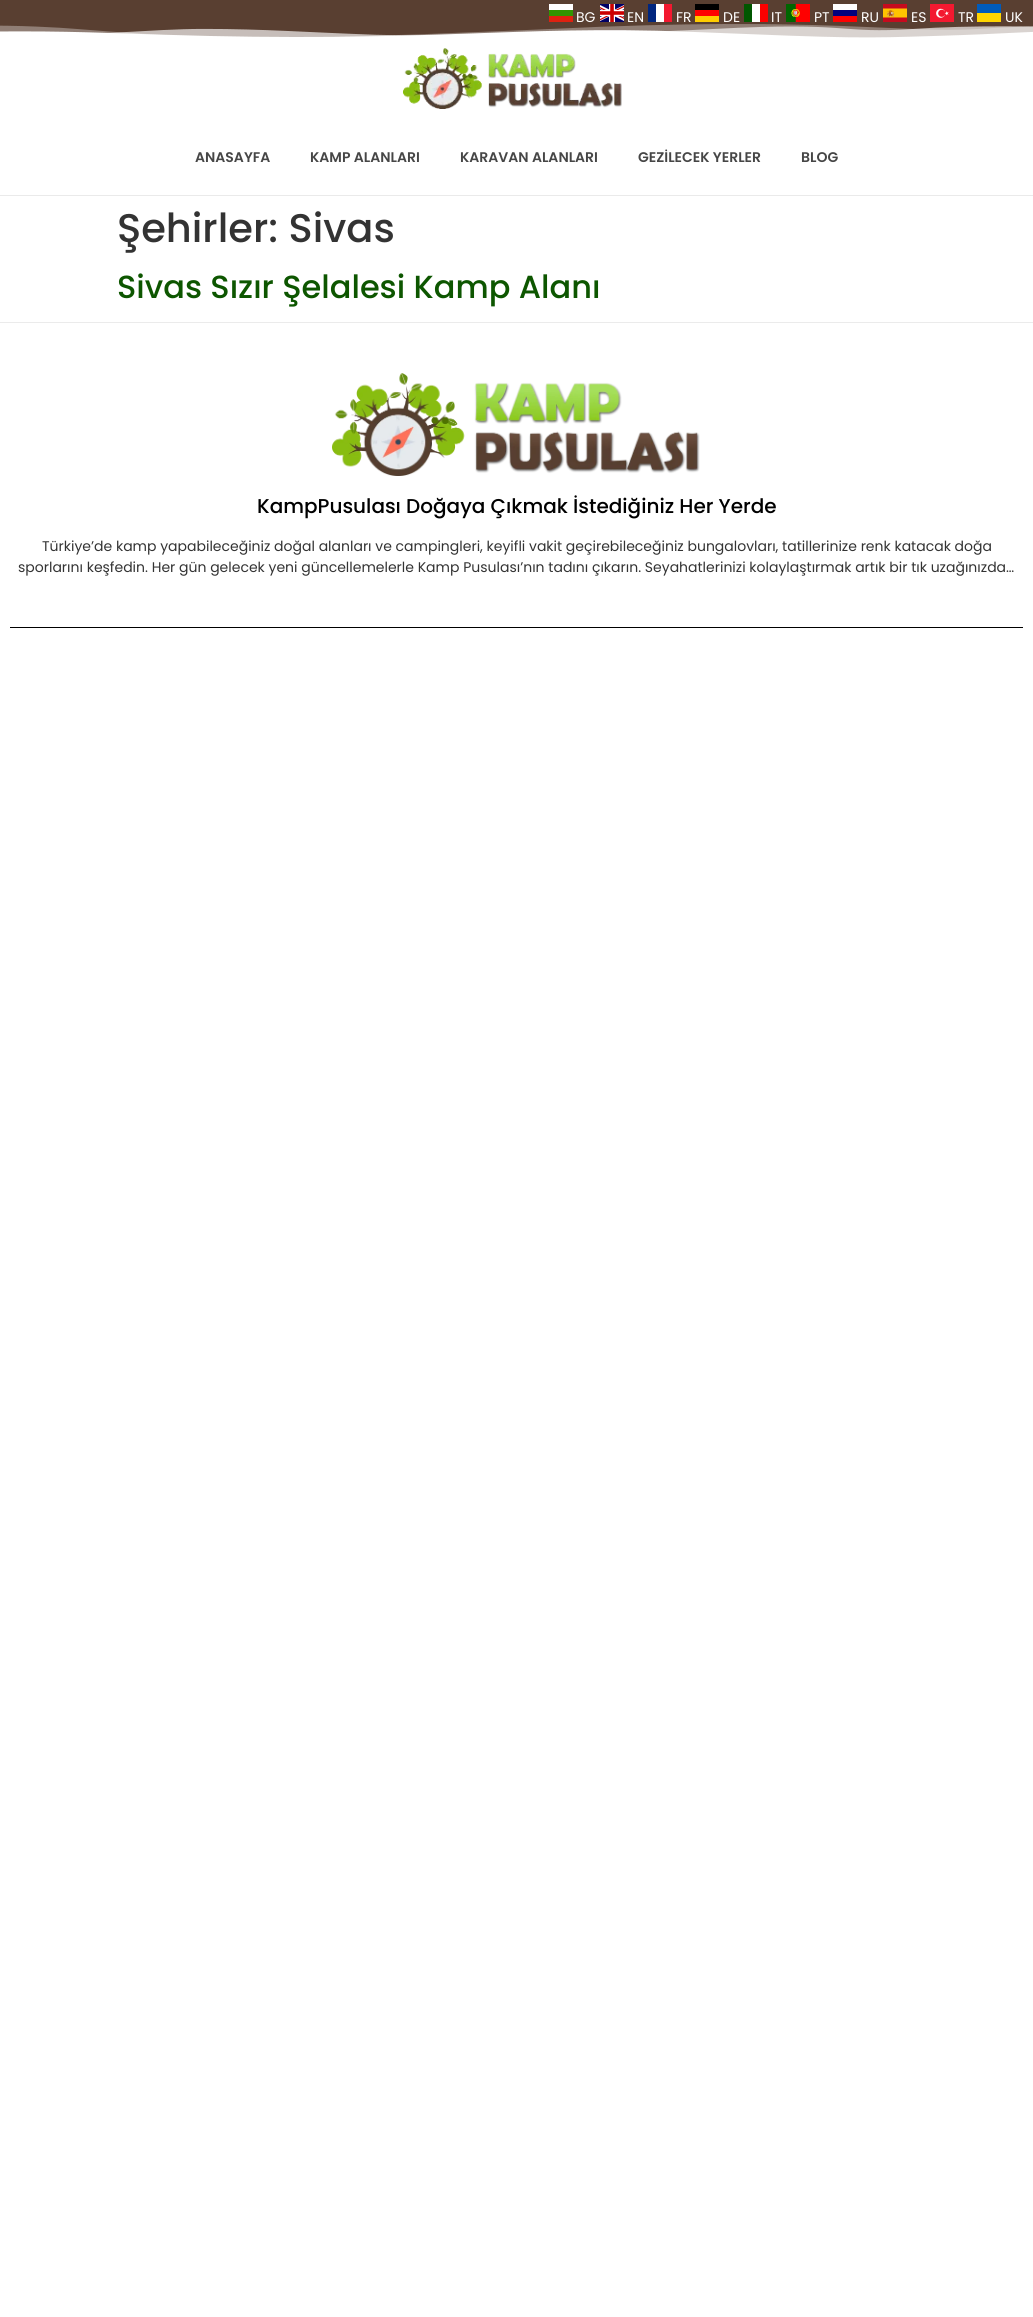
#include <cairo.h>
#include <math.h>
#include <stddef.h>


static void set_color(cairo_t *cr, unsigned color) {
    cairo_set_source_rgb(cr, (color >> 16) / 255.0, (color >> 8 & 255) / 255.0, (color & 255) / 255.0);
}

static void draw_text(cairo_t *cr, double x, double y, const char *s, const char *family, double size, int italic, int bold, unsigned color) {
    cairo_select_font_face(cr, family, italic ? CAIRO_FONT_SLANT_ITALIC : CAIRO_FONT_SLANT_NORMAL,
        bold ? CAIRO_FONT_WEIGHT_BOLD : CAIRO_FONT_WEIGHT_NORMAL);
    cairo_set_font_size(cr, size);
    set_color(cr, color);
    cairo_move_to(cr, x, y);
    cairo_show_text(cr, s);
}

static void fill_rect(cairo_t *cr, double x, double y, double w, double h, unsigned color) {
    set_color(cr, color);
    cairo_rectangle(cr, x, y, w, h);
    cairo_fill(cr);
}

static void draw_image(cairo_t *cr, const char *path, double x, double y, double w, double h) {
    cairo_surface_t *image = cairo_image_surface_create_from_png(path);
    cairo_save(cr);
    cairo_set_source_surface(cr, image, x, y);
    cairo_rectangle(cr, x, y, w, h);
    cairo_fill(cr);
    cairo_restore(cr);
    cairo_surface_destroy(image);
}

int main(void) {
    cairo_surface_t *surface = cairo_image_surface_create(CAIRO_FORMAT_RGB24, 1033, 2317);
    cairo_t *cr = cairo_create(surface);
    cairo_font_options_t *options = cairo_font_options_create();
    cairo_font_options_set_hint_metrics(options, CAIRO_HINT_METRICS_OFF);
    cairo_font_options_set_hint_style(options, CAIRO_HINT_STYLE_NONE);
    cairo_set_font_options(cr, options);
    cairo_set_miter_limit(cr, 4);
    set_color(cr, 0xFFFFFF);
    cairo_paint(cr);
    fill_rect(cr, 0, 0, 1033, 38, 0x593F31);
    draw_text(cr, 576, 22, "BG", "Poppins", 14, 0, 0, 0xFFFFFF);
    fill_rect(cr, 549, 16, 24, 6, 0xDE2110);
    fill_rect(cr, 549, 4, 24, 6, 0xFFFFFF);
    fill_rect(cr, 549, 10, 24, 6, 0x319400);
    draw_image(cr, "assets/img1.png", 600, 4, 24, 18);
    draw_text(cr, 627, 22, "EN", "Poppins", 14, 0, 0, 0xFFFFFF);
    draw_text(cr, 676, 22, "FR", "Poppins", 14, 0, 0, 0xFFFFFF);
    fill_rect(cr, 656, 4, 8, 18, 0xFFFFFF);
    fill_rect(cr, 648, 4, 8, 18, 0x00267F);
    fill_rect(cr, 664, 4, 8, 18, 0xF31830);
    draw_text(cr, 723, 22, "DE", "Poppins", 14, 0, 0, 0xFFFFFF);
    fill_rect(cr, 695, 16, 24, 6, 0xFFCC00);
    fill_rect(cr, 695, 4, 24, 6, 0x000000);
    fill_rect(cr, 695, 10, 24, 6, 0xFF0000);
    draw_text(cr, 771, 22, "IT", "Poppins", 14, 0, 0, 0xFFFFFF);
    fill_rect(cr, 752, 4, 8, 18, 0xFFFFFF);
    fill_rect(cr, 744, 4, 8, 18, 0x005700);
    fill_rect(cr, 760, 4, 8, 18, 0xFC0000);
    draw_image(cr, "assets/img2.png", 786, 4, 24, 18);
    draw_text(cr, 814, 22, "PT", "Poppins", 14, 0, 0, 0xFFFFFF);
    draw_text(cr, 861, 22, "RU", "Poppins", 14, 0, 0, 0xFFFFFF);
    fill_rect(cr, 833, 4, 24, 6, 0xFFFFFF);
    fill_rect(cr, 833, 10, 24, 6, 0x01017E);
    fill_rect(cr, 833, 16, 24, 6, 0xFE0101);
    draw_image(cr, "assets/img3.png", 883, 4, 24, 18);
    draw_text(cr, 911, 22, "ES", "Poppins", 14, 0, 0, 0xFFFFFF);
    draw_image(cr, "assets/img4.png", 930, 4, 24, 18);
    draw_text(cr, 958, 22, "TR", "Poppins", 14, 0, 0, 0xFFFFFF);
    draw_text(cr, 1005, 22, "UK", "Poppins", 14, 0, 0, 0xFFFFFF);
    fill_rect(cr, 977, 13, 24, 9, 0xFFD500);
    fill_rect(cr, 977, 4, 24, 9, 0x005BBB);
    draw_image(cr, "assets/img5.png", 0, 24, 1033, 14);
    draw_image(cr, "assets/img6.png", 403, 48, 219, 61);
    fill_rect(cr, 0, 195, 1033, 1, 0xEAEAEA);
    draw_text(cr, 195, 162, "ANASAYFA", "Poppins SemiBold", 14, 0, 0, 0x464646);
    draw_text(cr, 310, 162, "KAMP ALANLARI", "Poppins SemiBold", 14, 0, 0, 0x464646);
    draw_text(cr, 460, 162, "KARAVAN ALANLARI", "Poppins SemiBold", 14, 0, 0, 0x464646);
    draw_text(cr, 638, 162, "GEZİLECEK YERLER", "Poppins SemiBold", 14, 0, 0, 0x464646);
    draw_text(cr, 801, 162, "BLOG", "Poppins SemiBold", 14, 0, 0, 0x464646);
    draw_text(cr, 117, 242, "Şehirler: Sivas", "Poppins Medium", 40, 0, 0, 0x333333);
    draw_text(cr, 117, 298, "Sivas Sızır Şelalesi Kamp Alanı", "Poppins Medium", 32, 0, 0, 0x0D5600);
    fill_rect(cr, 0, 322, 1033, 1, 0xEBEBEB);
    draw_image(cr, "assets/img7.png", 332, 373, 368, 103);
    draw_text(cr, 257, 513, "KampPusulası Doğaya Çıkmak İstediğiniz Her Yerde", "Poppins Medium", 20, 0, 0, 0x000000);
    draw_text(cr, 42, 551, "Türkiye’de kamp yapabileceğiniz doğal alanları ve campingleri, keyifli vakit geçirebileceğiniz bungalovları, tatillerinize renk katacak doğa", "Poppins", 14, 0, 0, 0x333333);
    draw_text(cr, 18, 572, "sporlarını keşfedin. Her gün gelecek yeni güncellemelerle Kamp Pusulası’nın tadını çıkarın. Seyahatlerinizi kolaylaştırmak artık bir tık uzağınızda…", "Poppins", 14, 0, 0, 0x333333);
    fill_rect(cr, 10, 627, 1013, 1, 0x000000);
    cairo_surface_write_to_png(surface, "output.png");
    cairo_font_options_destroy(options);
    cairo_destroy(cr);
    cairo_surface_destroy(surface);
    return 0;
}
